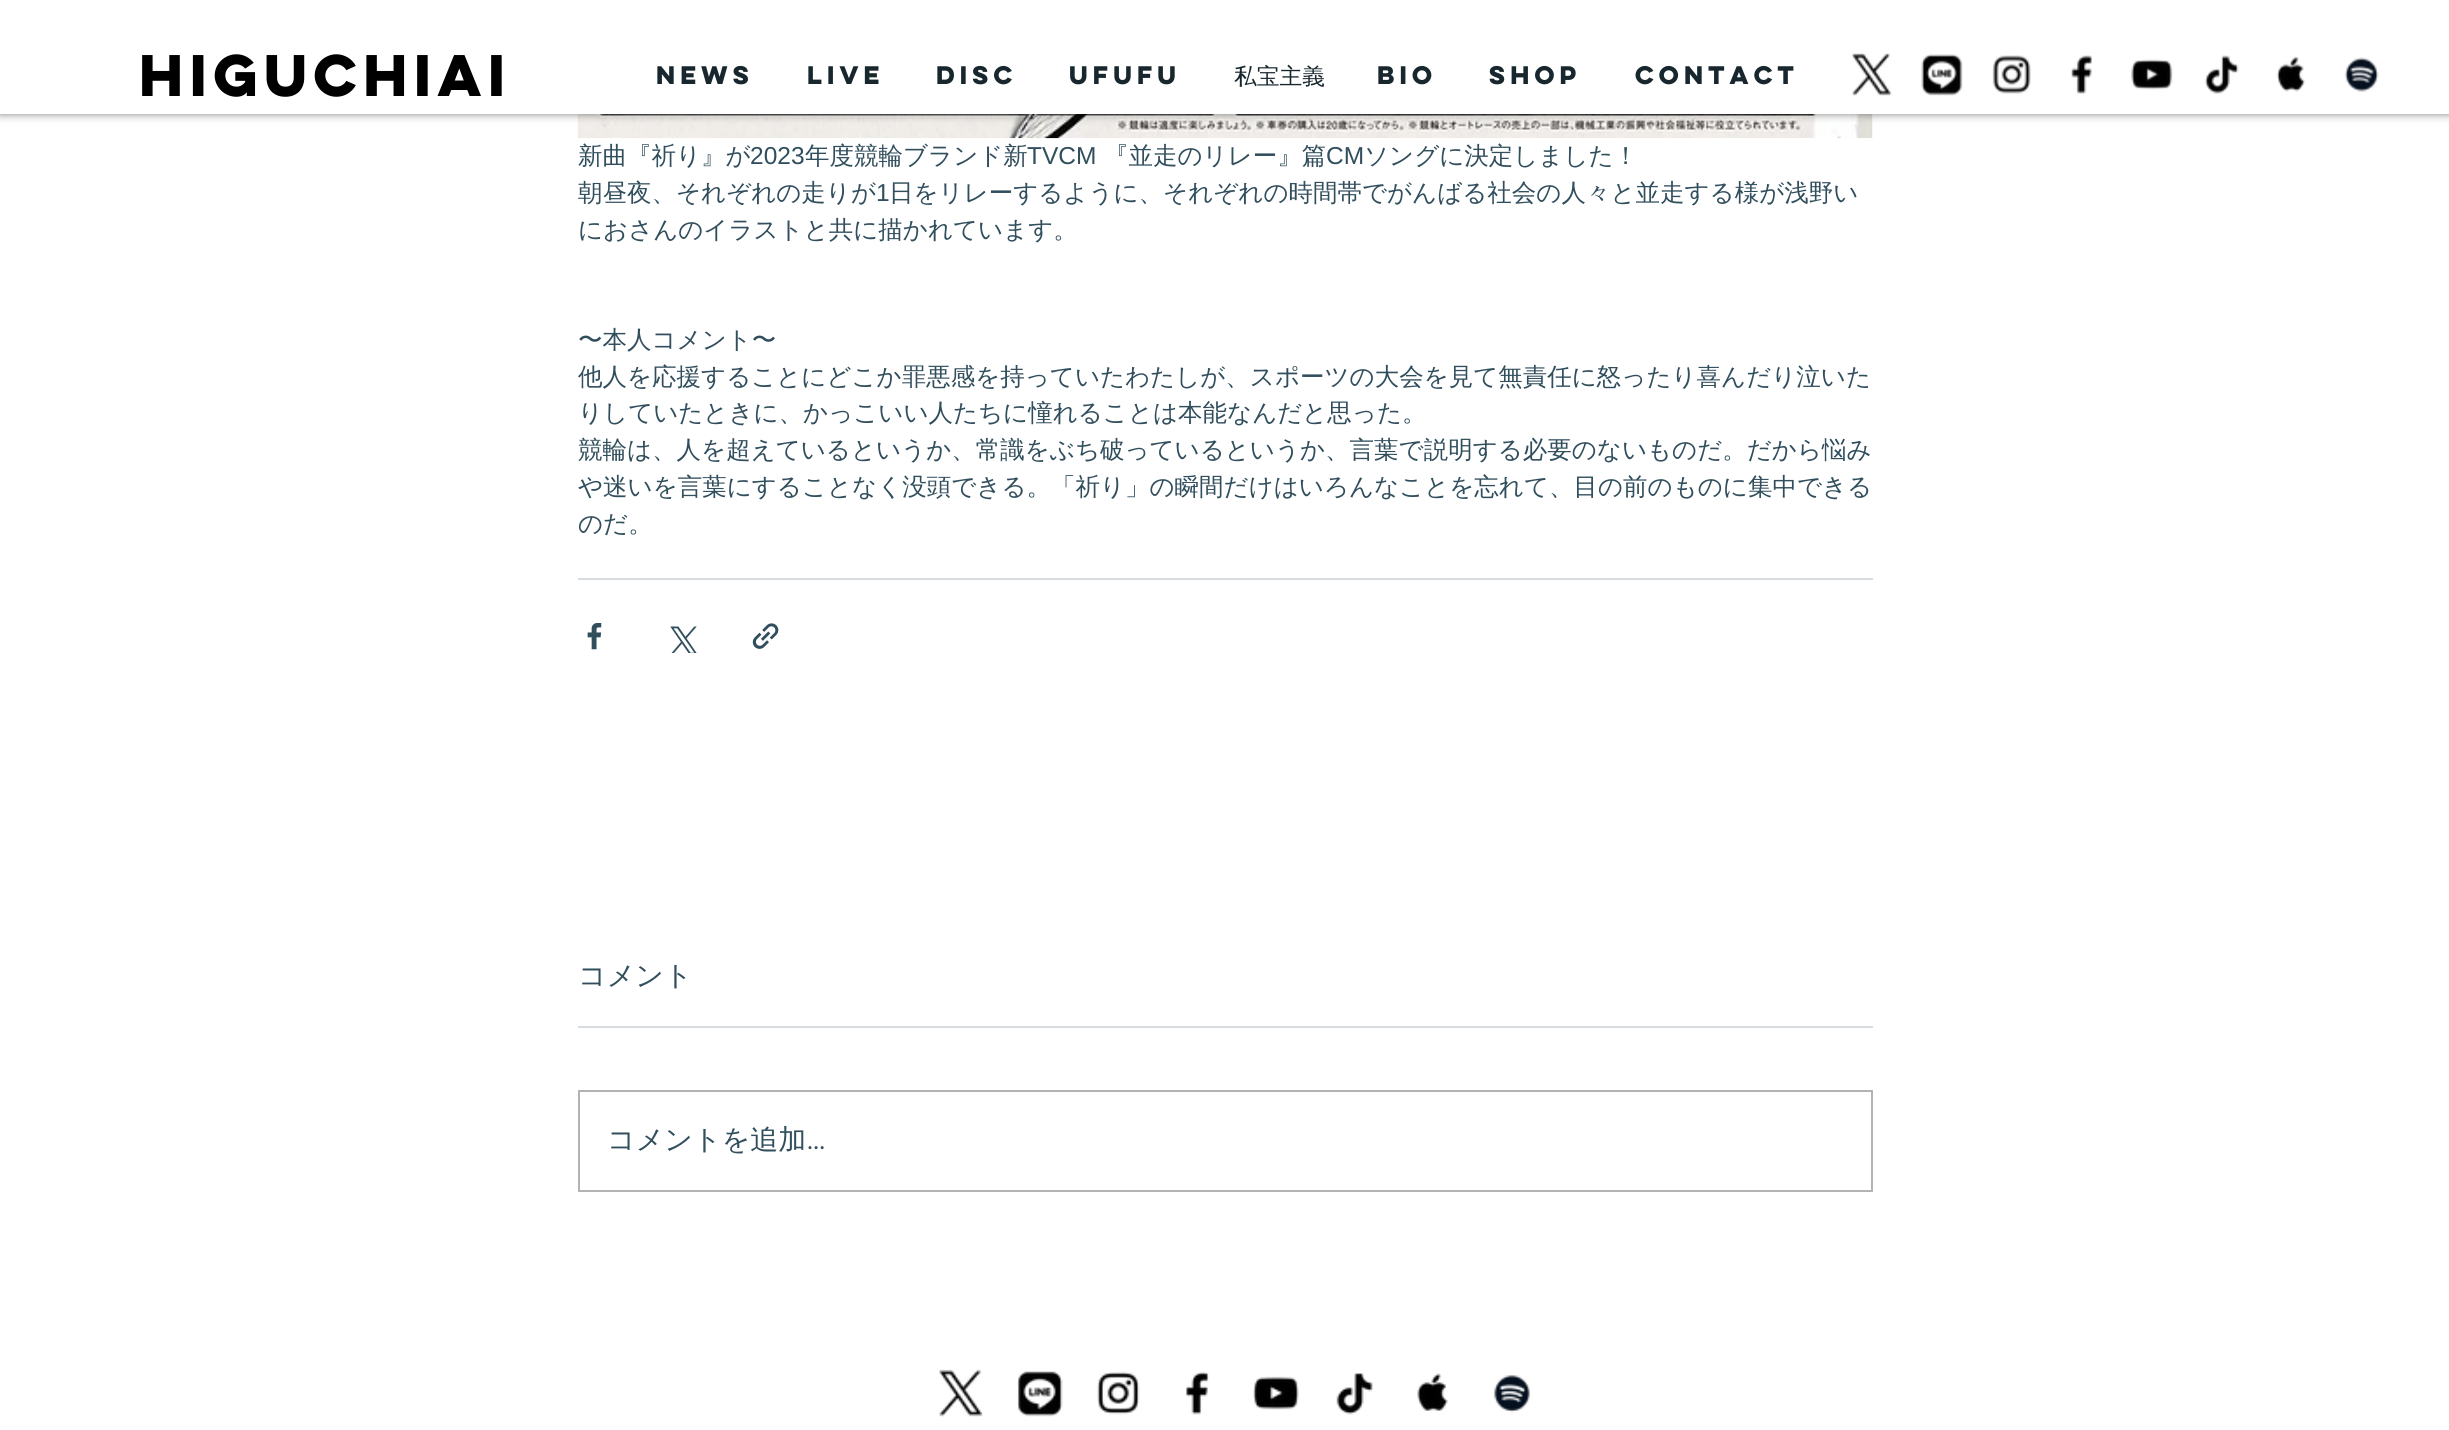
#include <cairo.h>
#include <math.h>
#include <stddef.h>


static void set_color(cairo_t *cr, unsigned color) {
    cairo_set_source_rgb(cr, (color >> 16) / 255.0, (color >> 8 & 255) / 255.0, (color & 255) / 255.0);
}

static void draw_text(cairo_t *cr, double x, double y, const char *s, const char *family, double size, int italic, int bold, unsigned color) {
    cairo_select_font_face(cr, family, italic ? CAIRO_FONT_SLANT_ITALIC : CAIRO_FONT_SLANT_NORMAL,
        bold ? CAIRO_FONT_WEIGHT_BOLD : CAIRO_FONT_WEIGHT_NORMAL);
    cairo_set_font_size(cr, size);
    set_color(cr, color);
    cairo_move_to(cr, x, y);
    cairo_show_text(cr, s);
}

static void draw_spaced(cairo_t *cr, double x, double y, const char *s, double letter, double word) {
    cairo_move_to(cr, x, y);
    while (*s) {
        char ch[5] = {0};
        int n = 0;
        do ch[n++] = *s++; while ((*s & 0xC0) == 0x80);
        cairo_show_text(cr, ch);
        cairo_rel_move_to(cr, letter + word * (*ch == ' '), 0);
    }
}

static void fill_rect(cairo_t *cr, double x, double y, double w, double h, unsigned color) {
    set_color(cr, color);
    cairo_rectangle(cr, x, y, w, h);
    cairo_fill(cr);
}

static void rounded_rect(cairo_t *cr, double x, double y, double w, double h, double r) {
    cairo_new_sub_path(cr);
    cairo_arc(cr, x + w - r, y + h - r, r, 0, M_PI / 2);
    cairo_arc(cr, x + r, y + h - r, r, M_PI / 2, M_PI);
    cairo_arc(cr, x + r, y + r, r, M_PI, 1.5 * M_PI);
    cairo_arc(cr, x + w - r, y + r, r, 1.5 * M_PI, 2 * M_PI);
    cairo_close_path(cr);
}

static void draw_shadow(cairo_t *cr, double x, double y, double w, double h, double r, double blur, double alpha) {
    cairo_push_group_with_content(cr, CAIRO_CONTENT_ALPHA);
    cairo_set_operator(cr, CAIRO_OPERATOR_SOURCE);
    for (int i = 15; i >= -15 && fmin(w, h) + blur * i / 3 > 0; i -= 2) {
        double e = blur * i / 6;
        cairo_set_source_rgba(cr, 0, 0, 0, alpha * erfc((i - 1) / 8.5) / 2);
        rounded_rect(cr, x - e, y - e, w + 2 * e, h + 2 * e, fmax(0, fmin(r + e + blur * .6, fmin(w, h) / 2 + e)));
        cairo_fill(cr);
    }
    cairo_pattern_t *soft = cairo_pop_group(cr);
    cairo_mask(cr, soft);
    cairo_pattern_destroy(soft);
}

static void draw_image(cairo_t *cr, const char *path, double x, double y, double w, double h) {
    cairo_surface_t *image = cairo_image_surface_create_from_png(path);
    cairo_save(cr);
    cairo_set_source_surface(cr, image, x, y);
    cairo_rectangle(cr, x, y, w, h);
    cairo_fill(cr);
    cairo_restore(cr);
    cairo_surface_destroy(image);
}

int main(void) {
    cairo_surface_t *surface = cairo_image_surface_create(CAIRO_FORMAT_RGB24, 2449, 1430);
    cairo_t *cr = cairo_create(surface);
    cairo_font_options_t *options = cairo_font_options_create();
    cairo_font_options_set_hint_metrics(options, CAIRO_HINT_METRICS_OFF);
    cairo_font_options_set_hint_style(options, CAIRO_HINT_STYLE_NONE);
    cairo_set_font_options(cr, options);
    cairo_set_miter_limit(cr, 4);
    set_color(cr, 0xFFFFFF);
    cairo_paint(cr);
    draw_image(cr, "assets/img9.png", 577, 114, 1296, 25);
    set_color(cr, 0x000000);
    draw_shadow(cr, 0, 0, 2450, 114, 0, 4.5, 0.5);
    fill_rect(cr, 0, 0, 2449, 114, 0xFFFFFF);
    draw_image(cr, "assets/img1.png", 1851, 53, 41, 43);
    draw_image(cr, "assets/img2.png", 1921, 54, 42, 42);
    draw_image(cr, "assets/img3.png", 1992, 55, 39, 39);
    draw_image(cr, "assets/img4.png", 2071, 55, 21, 39);
    draw_image(cr, "assets/img5.png", 2131, 59, 42, 31);
    draw_image(cr, "assets/img6.png", 2204, 55, 35, 39);
    draw_image(cr, "assets/img7.png", 2276, 56, 29, 36);
    draw_image(cr, "assets/img8.png", 2344, 57, 35, 35);
    cairo_select_font_face(cr, "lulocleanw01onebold", CAIRO_FONT_SLANT_NORMAL, CAIRO_FONT_WEIGHT_BOLD);
    cairo_set_font_size(cr, 52.5);
    set_color(cr, 0x000000);
    draw_spaced(cr, 139, 96, "HIGUCHIAI", -5.25, 0);
    draw_text(cr, 656, 84, "NEWS", "lulocleanw01onebold", 22.75, 0, 1, 0x18272E);
    draw_text(cr, 807, 84, "LIVE", "lulocleanw01onebold", 22.75, 0, 1, 0x18272E);
    draw_text(cr, 936, 84, "DISC", "lulocleanw01onebold", 22.75, 0, 1, 0x18272E);
    draw_text(cr, 1069, 84, "UFUFU", "lulocleanw01onebold", 22.75, 0, 1, 0x18272E);
    draw_text(cr, 1234, 84, "私宝主義", "WenQuanYi Zen Hei Medium", 22.75, 0, 0, 0x18272E);
    draw_text(cr, 1377, 84, "Bio", "lulocleanw01onebold", 22.75, 0, 1, 0x18272E);
    draw_text(cr, 1489, 84, "SHOP", "lulocleanw01onebold", 22.75, 0, 1, 0x18272E);
    draw_text(cr, 1635, 84, "CONTACT", "lulocleanw01onebold", 22.75, 0, 1, 0x18272E);
    draw_text(cr, 578, 164, "新曲『祈り』が", "WenQuanYi Zen Hei Medium", 24.5, 0, 0, 0x314E5D);
    draw_text(cr, 750, 164, "2023", "Liberation Sans", 24.5, 0, 0, 0x314E5D);
    draw_text(cr, 805, 164, "年度競輪ブランド新", "WenQuanYi Zen Hei Medium", 24.5, 0, 0, 0x314E5D);
    draw_text(cr, 1027, 164, "TVCM", "Liberation Sans", 24.5, 0, 0, 0x314E5D);
    draw_text(cr, 1104, 164, "『並走のリレー』篇", "WenQuanYi Zen Hei Medium", 24.5, 0, 0, 0x314E5D);
    draw_text(cr, 1326, 164, "CM", "Liberation Sans", 24.5, 0, 0, 0x314E5D);
    draw_text(cr, 1364, 164, "ソングに決定しました！", "WenQuanYi Zen Hei Medium", 24.5, 0, 0, 0x314E5D);
    draw_text(cr, 578, 201, "朝昼夜、それぞれの走りが", "WenQuanYi Zen Hei Medium", 24.5, 0, 0, 0x314E5D);
    draw_text(cr, 876, 201, "1", "Liberation Sans", 24.5, 0, 0, 0x314E5D);
    draw_text(cr, 889, 201, "日をリレーするように、それぞれの時間帯でがんばる社会の人々と並走する様が浅野い", "WenQuanYi Zen Hei Medium", 24.5, 0, 0, 0x314E5D);
    draw_text(cr, 578, 238, "におさんのイラストと共に描かれています。", "WenQuanYi Zen Hei Medium", 24.5, 0, 0, 0x314E5D);
    draw_text(cr, 578, 348, "〜本人コメント〜", "WenQuanYi Zen Hei Medium", 24.5, 0, 0, 0x314E5D);
    draw_text(cr, 578, 385, "他人を応援することにどこか罪悪感を持っていたわたしが、スポーツの大会を見て無責任に怒ったり喜んだり泣いた", "WenQuanYi Zen Hei Medium", 24.5, 0, 0, 0x314E5D);
    draw_text(cr, 578, 421, "りしていたときに、かっこいい人たちに憧れることは本能なんだと思った。", "WenQuanYi Zen Hei Medium", 24.5, 0, 0, 0x314E5D);
    draw_text(cr, 578, 458, "競輪は、人を超えているというか、常識をぶち破っているというか、言葉で説明する必要のないものだ。だから悩み", "WenQuanYi Zen Hei Medium", 24.5, 0, 0, 0x314E5D);
    draw_text(cr, 578, 495, "や迷いを言葉にすることなく没頭できる。「祈り」の瞬間だけはいろんなことを忘れて、目の前のものに集中できる", "WenQuanYi Zen Hei Medium", 24.5, 0, 0, 0x314E5D);
    draw_text(cr, 578, 532, "のだ。", "WenQuanYi Zen Hei Medium", 24.5, 0, 0, 0x314E5D);
    fill_rect(cr, 578, 578, 1295, 2, 0xD6DCDF);
    draw_image(cr, "assets/img10.png", 587, 623, 15, 27);
    draw_image(cr, "assets/img11.png", 670, 626, 27, 27);
    draw_image(cr, "assets/img12.png", 752, 623, 27, 26);
    draw_text(cr, 578, 985, "コメント", "WenQuanYi Zen Hei Medium", 28, 0, 0, 0x314E5D);
    fill_rect(cr, 578, 1026, 1295, 2, 0xD6DCDF);
    cairo_rectangle(cr, 579, 1091, 1293, 100);
    set_color(cr, 0xB3B3B3);
    cairo_stroke(cr);
    draw_text(cr, 607, 1149, "コメントを追加", "WenQuanYi Zen Hei Medium", 28, 0, 0, 0x314E5D);
    draw_text(cr, 807, 1149, "…", "Montserrat", 28, 0, 0, 0x314E5D);
    draw_image(cr, "assets/img13.png", 939, 1369, 44, 48);
    draw_image(cr, "assets/img14.png", 1017, 1371, 46, 46);
    draw_image(cr, "assets/img15.png", 1097, 1371, 43, 44);
    draw_image(cr, "assets/img16.png", 1186, 1371, 23, 44);
    draw_image(cr, "assets/img17.png", 1253, 1376, 46, 34);
    draw_image(cr, "assets/img18.png", 1336, 1373, 37, 42);
    draw_image(cr, "assets/img19.png", 1417, 1373, 31, 38);
    draw_image(cr, "assets/img20.png", 1494, 1375, 36, 38);
    cairo_surface_write_to_png(surface, "output.png");
    cairo_font_options_destroy(options);
    cairo_destroy(cr);
    cairo_surface_destroy(surface);
    return 0;
}
